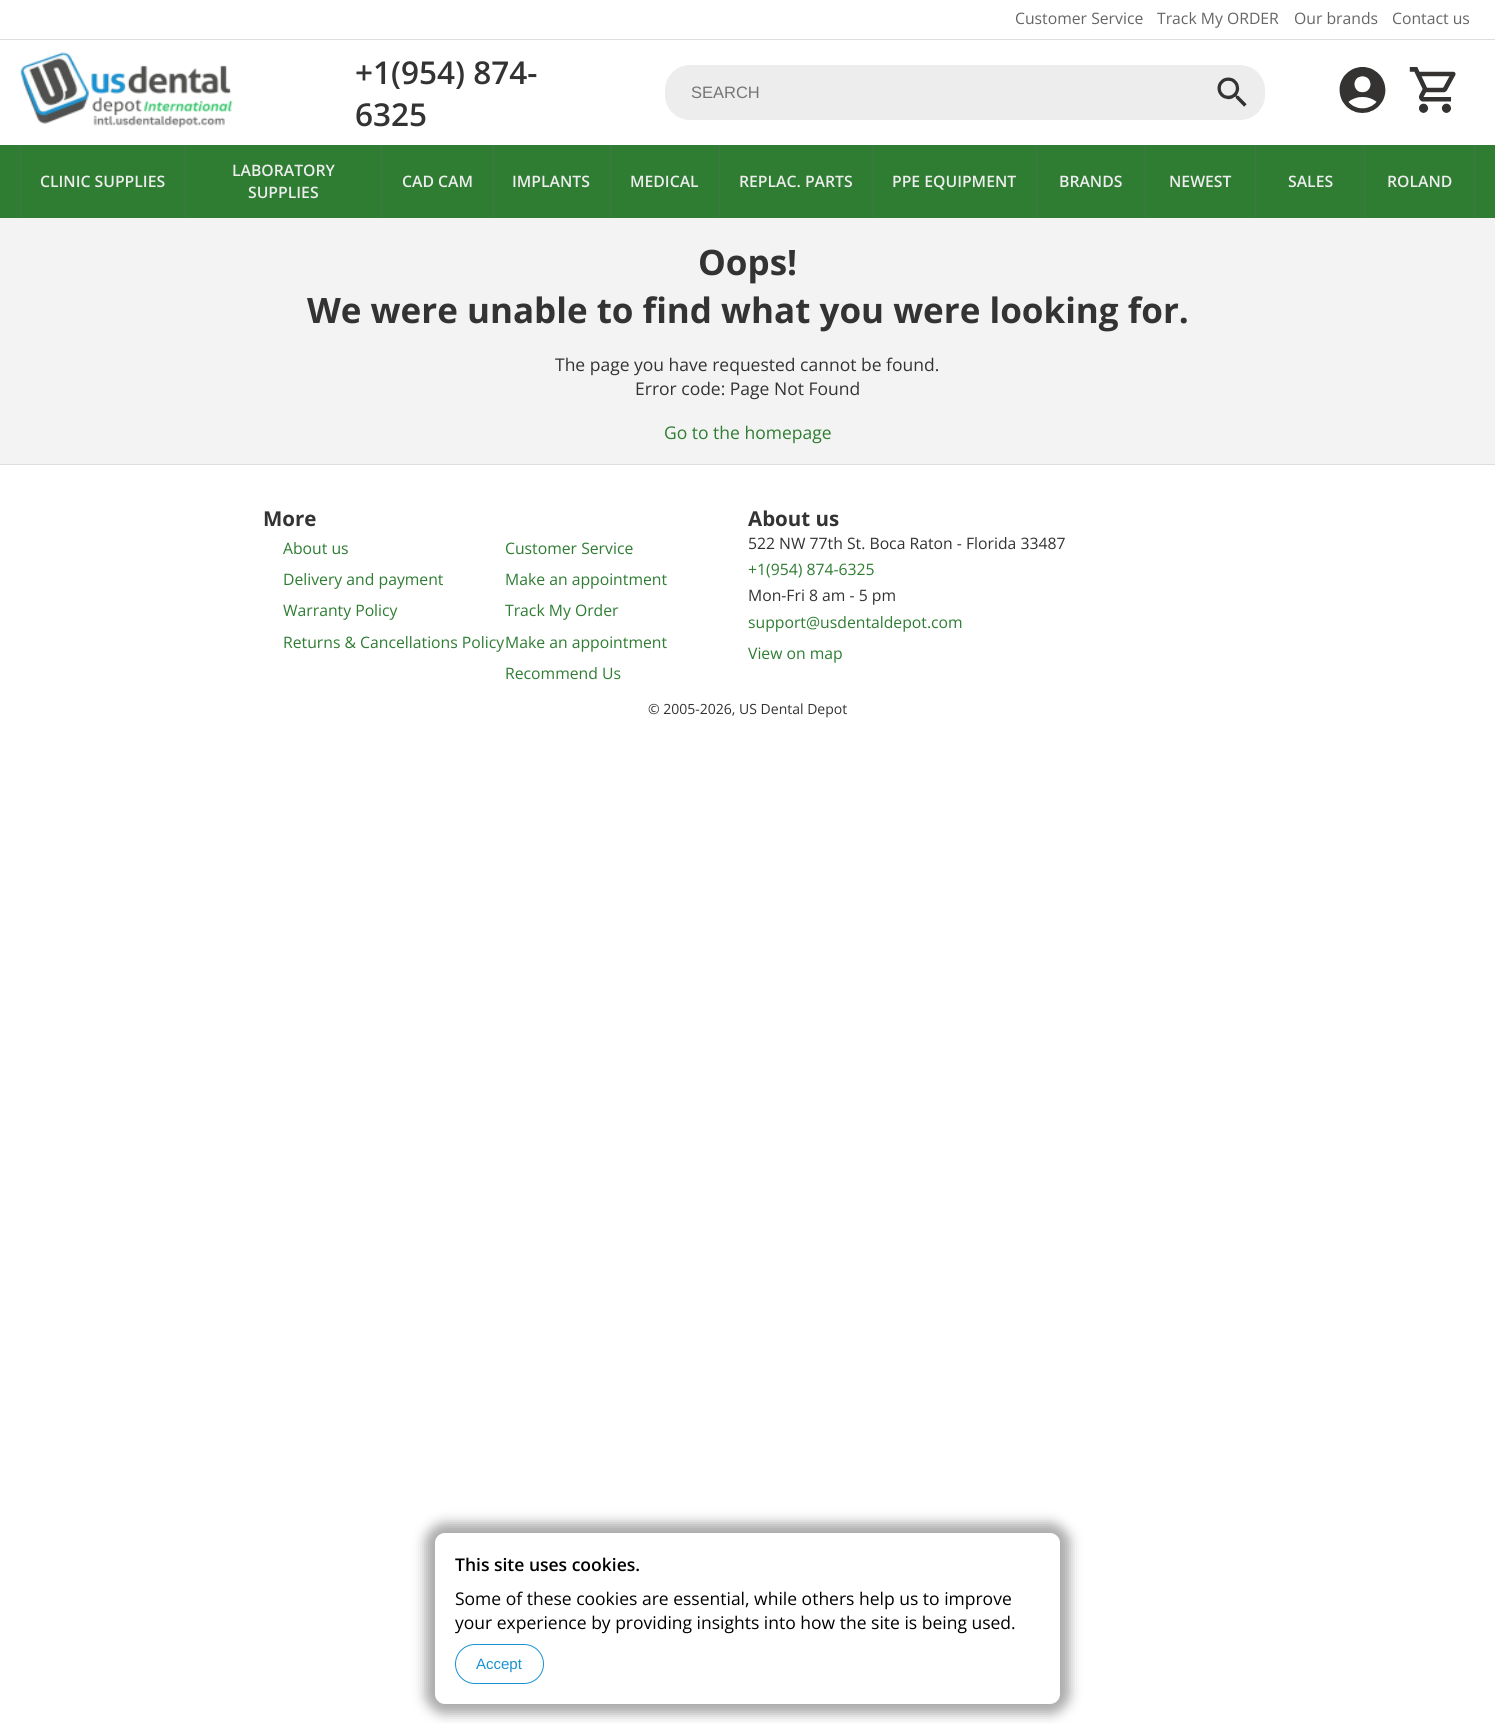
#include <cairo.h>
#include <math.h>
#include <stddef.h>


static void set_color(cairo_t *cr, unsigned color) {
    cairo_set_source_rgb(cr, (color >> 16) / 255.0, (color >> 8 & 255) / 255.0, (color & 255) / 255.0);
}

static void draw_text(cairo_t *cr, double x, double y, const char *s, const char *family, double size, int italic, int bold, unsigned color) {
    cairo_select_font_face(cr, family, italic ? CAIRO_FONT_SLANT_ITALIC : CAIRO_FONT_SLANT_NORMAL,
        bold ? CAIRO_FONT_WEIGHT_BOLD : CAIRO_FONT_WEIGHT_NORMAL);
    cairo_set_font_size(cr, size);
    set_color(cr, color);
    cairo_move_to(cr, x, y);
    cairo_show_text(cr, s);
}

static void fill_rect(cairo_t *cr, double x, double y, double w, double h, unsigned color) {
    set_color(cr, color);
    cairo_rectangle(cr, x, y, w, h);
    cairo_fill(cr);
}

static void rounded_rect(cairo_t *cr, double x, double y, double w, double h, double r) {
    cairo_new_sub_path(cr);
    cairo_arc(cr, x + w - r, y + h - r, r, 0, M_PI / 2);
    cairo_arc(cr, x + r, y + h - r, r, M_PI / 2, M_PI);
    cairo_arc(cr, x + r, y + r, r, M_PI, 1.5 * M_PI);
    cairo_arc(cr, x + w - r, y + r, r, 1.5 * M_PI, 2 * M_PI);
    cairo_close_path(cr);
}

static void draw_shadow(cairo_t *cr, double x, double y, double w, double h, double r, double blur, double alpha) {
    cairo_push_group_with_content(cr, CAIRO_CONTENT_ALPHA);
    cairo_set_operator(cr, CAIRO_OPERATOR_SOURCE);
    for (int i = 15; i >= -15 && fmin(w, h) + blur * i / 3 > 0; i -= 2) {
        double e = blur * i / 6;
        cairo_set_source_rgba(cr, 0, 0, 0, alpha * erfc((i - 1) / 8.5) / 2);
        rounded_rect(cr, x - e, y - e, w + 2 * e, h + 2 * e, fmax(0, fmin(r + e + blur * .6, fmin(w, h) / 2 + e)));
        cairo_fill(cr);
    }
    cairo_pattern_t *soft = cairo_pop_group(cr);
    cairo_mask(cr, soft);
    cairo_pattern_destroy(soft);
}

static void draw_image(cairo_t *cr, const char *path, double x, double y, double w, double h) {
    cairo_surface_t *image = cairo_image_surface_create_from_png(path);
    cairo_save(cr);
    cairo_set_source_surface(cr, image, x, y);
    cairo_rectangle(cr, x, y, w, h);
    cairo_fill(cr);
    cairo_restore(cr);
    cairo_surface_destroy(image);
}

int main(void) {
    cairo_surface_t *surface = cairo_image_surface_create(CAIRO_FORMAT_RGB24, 1495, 1723);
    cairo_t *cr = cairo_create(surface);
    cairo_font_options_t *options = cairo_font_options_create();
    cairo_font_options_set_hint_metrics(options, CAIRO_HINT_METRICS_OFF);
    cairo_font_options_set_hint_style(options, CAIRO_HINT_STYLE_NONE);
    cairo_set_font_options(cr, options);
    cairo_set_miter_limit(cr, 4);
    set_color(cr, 0xFFFFFF);
    cairo_paint(cr);
    fill_rect(cr, 0, 39, 1495, 1, 0xDDDDDD);
    draw_text(cr, 1015, 24, "Customer Service", "Open Sans", 15.75, 0, 0, 0x666666);
    draw_text(cr, 1157, 24, "Track My ORDER", "Open Sans", 15.75, 0, 0, 0x666666);
    draw_text(cr, 1294, 24, "Our brands", "Open Sans", 15.75, 0, 0, 0x666666);
    draw_text(cr, 1392, 24, "Contact us", "Open Sans", 15.75, 0, 0, 0x666666);
    draw_image(cr, "assets/img1.png", 20, 52, 213, 76);
    draw_text(cr, 355, 84, "+1(954) 874-", "Open Sans SemiBold", 31.5, 0, 0, 0x333333);
    draw_text(cr, 355, 126, "6325", "Open Sans SemiBold", 31.5, 0, 0, 0x333333);
    set_color(cr, 0xEDEDED);
    rounded_rect(cr, 665.5, 65.5, 599, 54, 24.5);
    cairo_fill_preserve(cr);
    cairo_set_line_width(cr, 1);
    cairo_stroke(cr);
    draw_text(cr, 691, 98, "SEARCH", "Liberation Sans", 16.5, 0, 0, 0x757575);
    draw_image(cr, "assets/img2.png", 1217, 77, 30, 30);
    draw_image(cr, "assets/img3.png", 1339, 67, 47, 46);
    draw_image(cr, "assets/img4.png", 1409, 67, 47, 46);
    fill_rect(cr, 0, 145, 1495, 73, 0x2E7D32);
    fill_rect(cr, 20, 145, 1, 73, 0x447447);
    draw_text(cr, 40, 187, "CLINIC SUPPLIES", "Open Sans SemiBold", 15.75, 0, 0, 0xEDEDED);
    fill_rect(cr, 185, 145, 1, 73, 0x447447);
    draw_text(cr, 232, 176, "LABORATORY", "Open Sans SemiBold", 15.75, 0, 0, 0xEDEDED);
    draw_text(cr, 248, 198, "SUPPLIES", "Open Sans SemiBold", 15.75, 0, 0, 0xEDEDED);
    fill_rect(cr, 381, 145, 1, 73, 0x447447);
    draw_text(cr, 402, 187, "CAD CAM", "Open Sans SemiBold", 15.75, 0, 0, 0xEDEDED);
    fill_rect(cr, 493, 145, 1, 73, 0x447447);
    draw_text(cr, 512, 187, "IMPLANTS", "Open Sans SemiBold", 15.75, 0, 0, 0xEDEDED);
    fill_rect(cr, 610, 145, 1, 73, 0x447447);
    draw_text(cr, 630, 187, "MEDICAL", "Open Sans SemiBold", 15.75, 0, 0, 0xEDEDED);
    fill_rect(cr, 719, 145, 1, 73, 0x447447);
    draw_text(cr, 739, 187, "REPLAC. PARTS", "Open Sans SemiBold", 15.75, 0, 0, 0xEDEDED);
    fill_rect(cr, 873, 145, 1, 73, 0x447447);
    draw_text(cr, 892, 187, "PPE EQUIPMENT", "Open Sans SemiBold", 15.75, 0, 0, 0xEDEDED);
    fill_rect(cr, 1036, 145, 1, 73, 0x447447);
    draw_text(cr, 1059, 187, "BRANDS", "Open Sans SemiBold", 15.75, 0, 0, 0xEDEDED);
    fill_rect(cr, 1145, 145, 1, 73, 0x447447);
    draw_text(cr, 1169, 187, "NEWEST", "Open Sans SemiBold", 15.75, 0, 0, 0xEDEDED);
    fill_rect(cr, 1255, 145, 1, 73, 0x447447);
    draw_text(cr, 1288, 187, "SALES", "Open Sans SemiBold", 15.75, 0, 0, 0xEDEDED);
    fill_rect(cr, 1474, 145, 1, 73, 0x447447);
    fill_rect(cr, 1364, 145, 1, 73, 0x447447);
    draw_text(cr, 1387, 187, "ROLAND", "Open Sans SemiBold", 15.75, 0, 0, 0xEDEDED);
    fill_rect(cr, 0, 218, 1495, 246, 0xF3F3F3);
    draw_text(cr, 698, 275, "Oops!", "Open Sans", 35, 0, 1, 0x333333);
    draw_text(cr, 307, 323, "We were unable to find what you were looking for.", "Open Sans", 35, 0, 1, 0x333333);
    draw_text(cr, 555, 371, "The page you have requested cannot be found.", "Open Sans", 17.5, 0, 0, 0x333333);
    draw_text(cr, 635, 395, "Error code: Page Not Found", "Open Sans", 17.5, 0, 0, 0x333333);
    draw_text(cr, 664, 439, "Go to the homepage", "Open Sans", 17.5, 0, 0, 0x2E7D32);
    fill_rect(cr, 0, 464, 1495, 1, 0xDDDDDD);
    draw_text(cr, 263, 526, "More", "Open Sans", 20.5, 0, 1, 0x333333);
    draw_text(cr, 283, 554, "About us", "Open Sans", 15.75, 0, 0, 0x2E7D32);
    draw_text(cr, 283, 585, "Delivery and payment", "Open Sans", 15.75, 0, 0, 0x2E7D32);
    draw_text(cr, 283, 616, "Warranty Policy", "Open Sans", 15.75, 0, 0, 0x2E7D32);
    draw_text(cr, 283, 648, "Returns & Cancellations Policy", "Open Sans", 15.75, 0, 0, 0x2E7D32);
    draw_text(cr, 505, 554, "Customer Service", "Open Sans", 15.75, 0, 0, 0x2E7D32);
    draw_text(cr, 505, 585, "Make an appointment", "Open Sans", 15.75, 0, 0, 0x2E7D32);
    draw_text(cr, 505, 616, "Track My Order", "Open Sans", 15.75, 0, 0, 0x2E7D32);
    draw_text(cr, 505, 648, "Make an appointment", "Open Sans", 15.75, 0, 0, 0x2E7D32);
    draw_text(cr, 505, 679, "Recommend Us", "Open Sans", 15.75, 0, 0, 0x2E7D32);
    draw_text(cr, 748, 526, "About us", "Open Sans", 20.5, 0, 1, 0x333333);
    draw_text(cr, 748, 549, "522 NW 77th St. Boca Raton - Florida 33487", "Open Sans", 15.75, 0, 0, 0x333333);
    draw_text(cr, 748, 575, "+1(954) 874-6325", "Open Sans", 15.75, 0, 0, 0x2E7D32);
    draw_text(cr, 748, 601, "Mon-Fri 8 am - 5 pm", "Open Sans", 15.75, 0, 0, 0x333333);
    draw_text(cr, 748, 628, "support@usdentaldepot.com", "Open Sans", 15.75, 0, 0, 0x2E7D32);
    draw_text(cr, 748, 659, "View on map", "Open Sans", 15.75, 0, 0, 0x2E7D32);
    draw_text(cr, 648, 714, "© 2005-2026, US Dental Depot", "Open Sans", 14, 0, 0, 0x333333);
    set_color(cr, 0xAAAAAA);
    draw_shadow(cr, 425, 1523, 645, 191, 20, 6, 1);
    set_color(cr, 0xFFFFFF);
    rounded_rect(cr, 435, 1533, 625, 171, 10);
    cairo_fill(cr);
    draw_text(cr, 455, 1571, "This site uses cookies.", "Open Sans SemiBold", 17.5, 0, 0, 0x000000);
    draw_text(cr, 455, 1605, "Some of these cookies are essential, while others help us to improve", "Open Sans", 17.5, 0, 0, 0x000000);
    draw_text(cr, 455, 1629, "your experience by providing insights into how the site is being used.", "Open Sans", 17.5, 0, 0, 0x000000);
    rounded_rect(cr, 455.5, 1644.5, 88, 39, 19.5);
    set_color(cr, 0x1993D2);
    cairo_stroke(cr);
    draw_text(cr, 476, 1669, "Accept", "Liberation Sans", 15, 0, 0, 0x1993D2);
    cairo_surface_write_to_png(surface, "output.png");
    cairo_font_options_destroy(options);
    cairo_destroy(cr);
    cairo_surface_destroy(surface);
    return 0;
}
